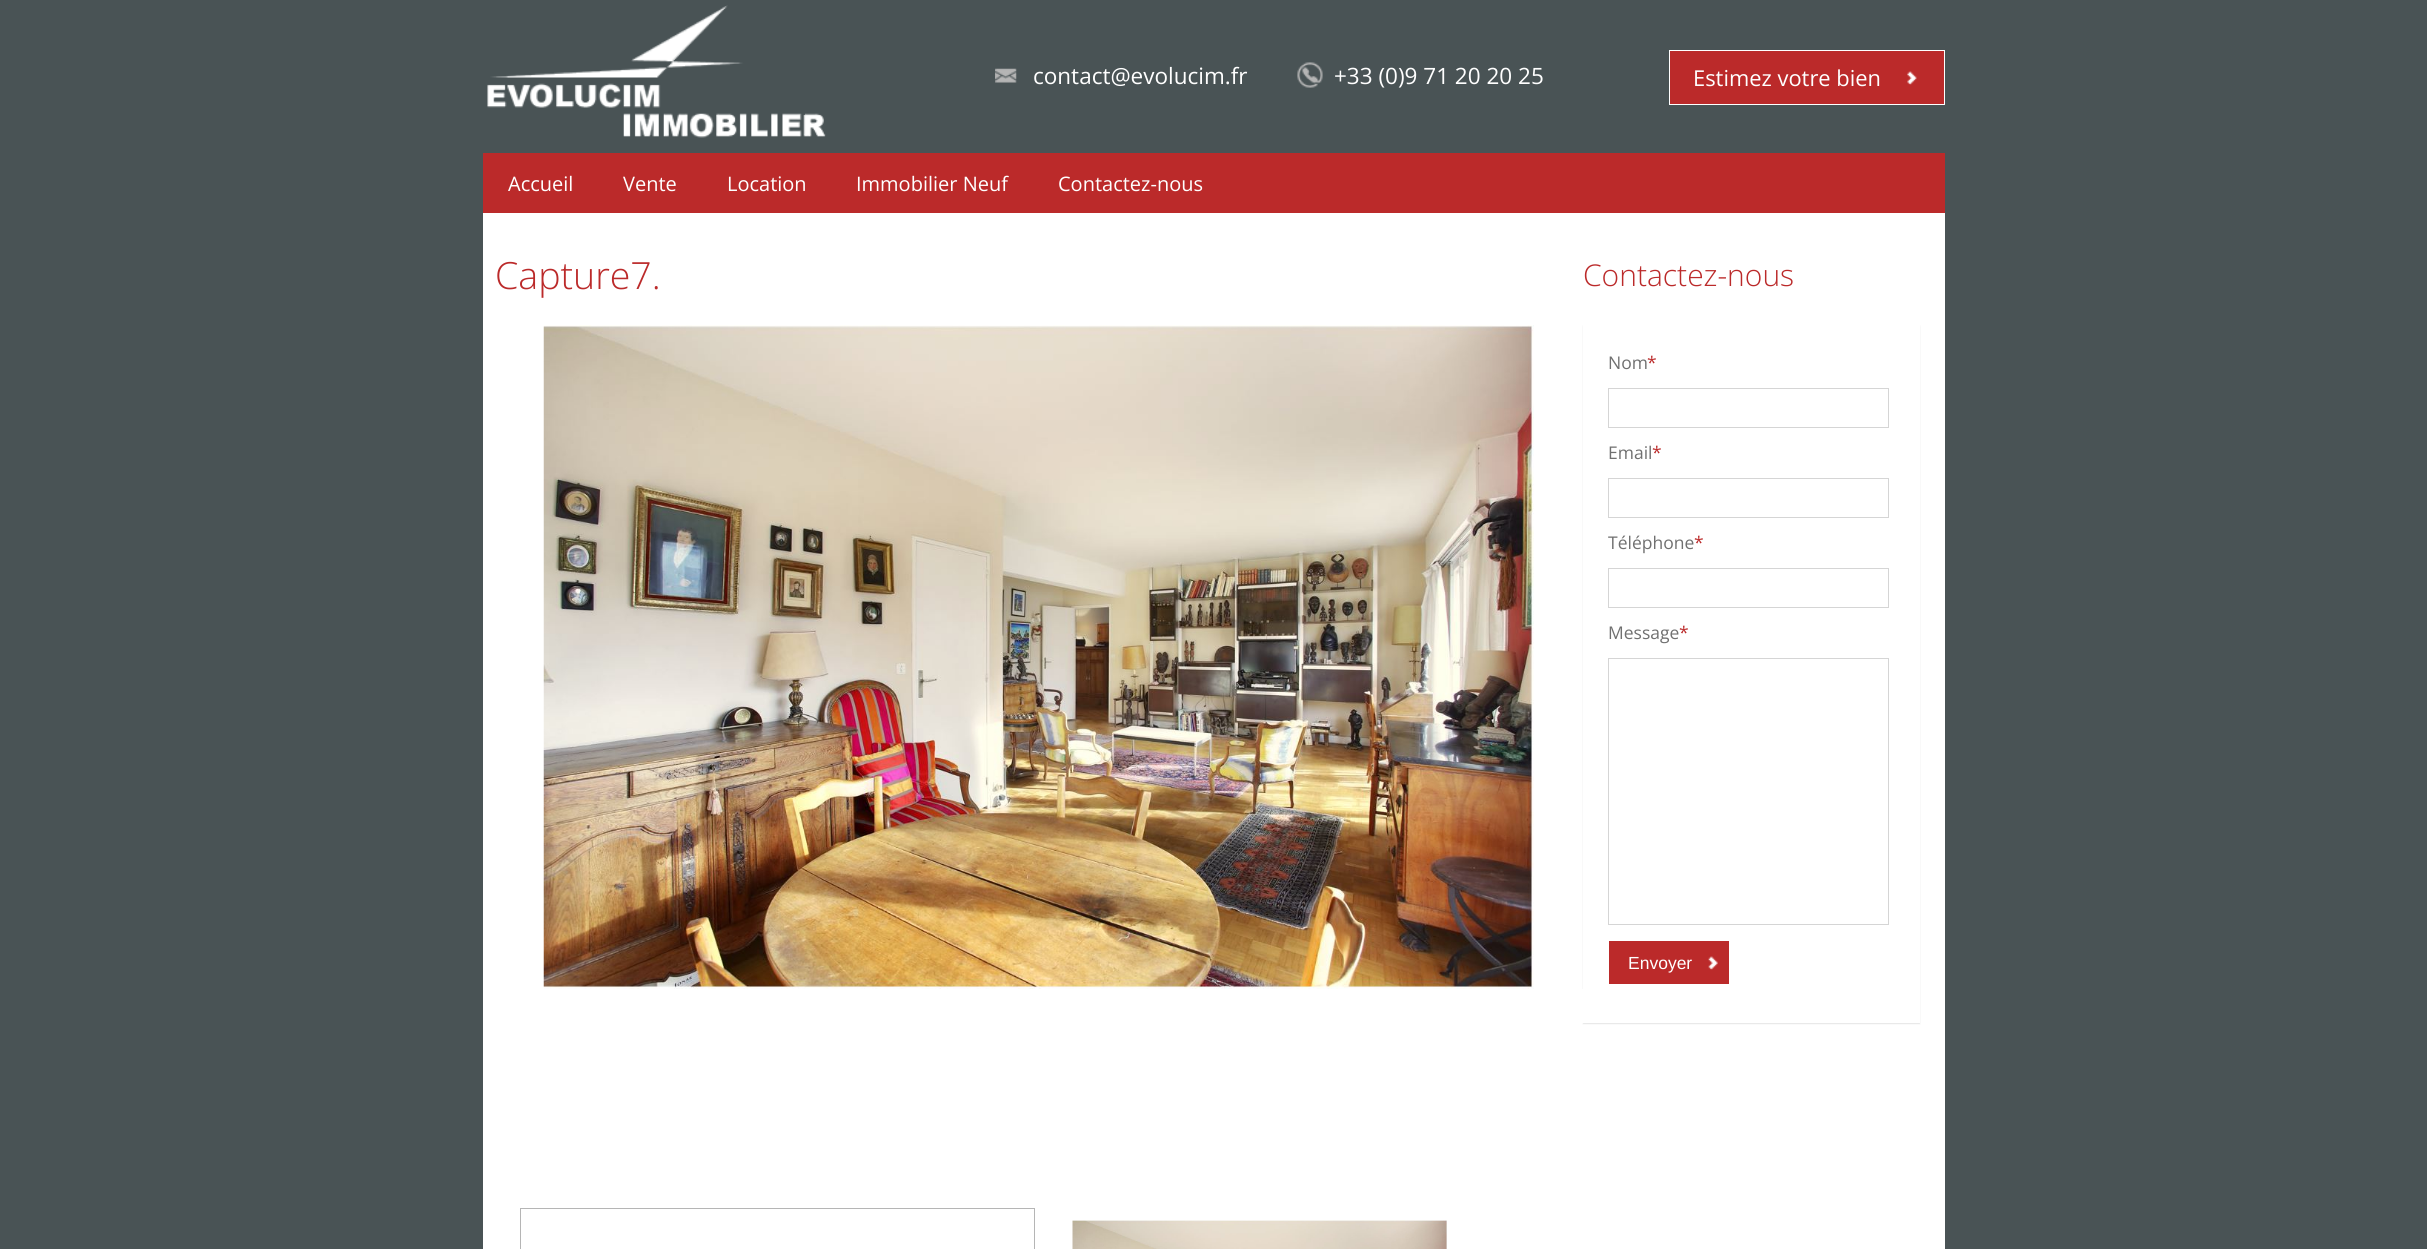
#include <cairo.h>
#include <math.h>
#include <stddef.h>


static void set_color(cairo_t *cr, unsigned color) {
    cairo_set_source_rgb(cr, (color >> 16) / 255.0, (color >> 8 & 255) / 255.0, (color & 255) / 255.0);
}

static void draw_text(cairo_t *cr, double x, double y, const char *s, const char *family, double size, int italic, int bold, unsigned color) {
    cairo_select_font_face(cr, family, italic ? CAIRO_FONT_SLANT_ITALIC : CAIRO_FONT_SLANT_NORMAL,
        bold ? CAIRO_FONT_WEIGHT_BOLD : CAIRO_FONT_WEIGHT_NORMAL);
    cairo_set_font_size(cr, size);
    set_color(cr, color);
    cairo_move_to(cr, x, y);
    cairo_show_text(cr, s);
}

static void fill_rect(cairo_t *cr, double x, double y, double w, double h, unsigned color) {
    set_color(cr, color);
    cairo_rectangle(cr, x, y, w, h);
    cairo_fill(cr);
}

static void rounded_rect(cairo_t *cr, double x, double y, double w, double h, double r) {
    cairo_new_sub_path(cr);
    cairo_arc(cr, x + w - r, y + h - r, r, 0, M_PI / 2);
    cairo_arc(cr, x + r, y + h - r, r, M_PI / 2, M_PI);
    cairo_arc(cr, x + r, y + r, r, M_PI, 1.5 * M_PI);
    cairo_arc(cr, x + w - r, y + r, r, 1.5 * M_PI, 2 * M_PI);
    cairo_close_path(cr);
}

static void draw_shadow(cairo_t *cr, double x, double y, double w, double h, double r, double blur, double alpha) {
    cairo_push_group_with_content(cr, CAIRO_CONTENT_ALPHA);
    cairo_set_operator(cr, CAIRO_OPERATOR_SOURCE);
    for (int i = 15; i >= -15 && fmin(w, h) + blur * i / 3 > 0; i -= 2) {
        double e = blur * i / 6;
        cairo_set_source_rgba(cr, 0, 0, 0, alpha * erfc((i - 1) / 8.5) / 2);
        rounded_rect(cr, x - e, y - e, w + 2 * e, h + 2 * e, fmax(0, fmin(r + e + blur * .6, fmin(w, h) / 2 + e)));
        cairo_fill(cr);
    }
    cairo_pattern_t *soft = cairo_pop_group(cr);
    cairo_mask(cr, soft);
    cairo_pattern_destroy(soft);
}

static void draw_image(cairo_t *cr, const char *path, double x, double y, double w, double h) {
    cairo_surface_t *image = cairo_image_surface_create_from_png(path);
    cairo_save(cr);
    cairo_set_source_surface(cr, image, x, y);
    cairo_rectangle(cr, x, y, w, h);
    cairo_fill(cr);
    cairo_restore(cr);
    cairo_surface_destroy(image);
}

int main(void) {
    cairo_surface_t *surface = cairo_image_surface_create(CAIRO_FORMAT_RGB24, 2427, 1249);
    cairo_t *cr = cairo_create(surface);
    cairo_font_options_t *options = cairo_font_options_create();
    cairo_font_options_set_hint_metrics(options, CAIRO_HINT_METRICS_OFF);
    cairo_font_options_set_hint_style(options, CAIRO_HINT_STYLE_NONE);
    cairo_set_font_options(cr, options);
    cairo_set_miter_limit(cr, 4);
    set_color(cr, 0x495355);
    cairo_paint(cr);
    draw_image(cr, "assets/img1.png", 487, 5, 339, 133);
    draw_image(cr, "assets/img2.png", 995, 68, 22, 15);
    draw_text(cr, 1033, 84, "contact@evolucim.fr", "Open Sans", 22.5, 0, 0, 0xFFFFFF);
    draw_image(cr, "assets/img3.png", 1297, 62, 26, 26);
    draw_text(cr, 1334, 84, "+33 (0)9 71 20 20 25", "Open Sans", 22.5, 0, 0, 0xFFFFFF);
    fill_rect(cr, 1670, 51, 274, 53, 0xBB2A2A);
    draw_image(cr, "assets/img4.png", 1907, 71, 10, 14);
    cairo_rectangle(cr, 1669.5, 50.5, 275, 54);
    set_color(cr, 0xFFFFFF);
    cairo_set_line_width(cr, 1);
    cairo_stroke(cr);
    draw_text(cr, 1693, 86, "Estimez votre bien", "Open Sans", 21.9, 0, 0, 0xFFFFFF);
    fill_rect(cr, 483, 153, 1462, 60, 0xBB2A2A);
    draw_text(cr, 508, 191, "Accueil", "Open Sans", 20, 0, 0, 0xFFFFFF);
    draw_text(cr, 623, 191, "Vente", "Open Sans", 20, 0, 0, 0xFFFFFF);
    draw_text(cr, 727, 191, "Location", "Open Sans", 20, 0, 0, 0xFFFFFF);
    draw_text(cr, 856, 191, "Immobilier Neuf", "Open Sans", 20, 0, 0, 0xFFFFFF);
    draw_text(cr, 1058, 191, "Contactez-nous", "Open Sans", 20, 0, 0, 0xFFFFFF);
    fill_rect(cr, 483, 213, 1462, 1036, 0xFFFFFF);
    draw_text(cr, 495, 289, "Capture7.", "Open Sans Light", 37.5, 0, 0, 0xBB2A2A);
    draw_image(cr, "assets/img5.png", 543, 325, 991, 664);
    set_color(cr, 0x000000);
    draw_shadow(cr, 1583, 326, 337, 698, 0, 0.5, 0.1);
    fill_rect(cr, 1582, 989, 1, 34, 0xFFFFFF);
    cairo_rectangle(cr, 520.5, 1208.5, 514, 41);
    set_color(cr, 0xB5B5B5);
    cairo_stroke(cr);
    draw_image(cr, "assets/img6.png", 1072, 1220, 375, 29);
    draw_text(cr, 1583, 286, "Contactez-nous", "Open Sans Light", 30, 0, 0, 0xBB2A2A);
    fill_rect(cr, 1583, 325, 337, 698, 0xFFFFFF);
    draw_text(cr, 1608, 369, "Nom", "Open Sans", 17.5, 0, 0, 0x707070);
    draw_text(cr, 1647, 369, "*", "Open Sans", 17.5, 0, 0, 0xBB2A2A);
    cairo_rectangle(cr, 1608.5, 388.5, 280, 39);
    set_color(cr, 0xD5D5D5);
    cairo_stroke(cr);
    draw_text(cr, 1608, 459, "Email", "Open Sans", 17.5, 0, 0, 0x707070);
    draw_text(cr, 1652, 459, "*", "Open Sans", 17.5, 0, 0, 0xBB2A2A);
    cairo_rectangle(cr, 1608.5, 478.5, 280, 39);
    set_color(cr, 0xD5D5D5);
    cairo_stroke(cr);
    draw_text(cr, 1608, 549, "Téléphone", "Open Sans", 17.5, 0, 0, 0x707070);
    draw_text(cr, 1694, 549, "*", "Open Sans", 17.5, 0, 0, 0xBB2A2A);
    cairo_rectangle(cr, 1608.5, 568.5, 280, 39);
    set_color(cr, 0xD5D5D5);
    cairo_stroke(cr);
    draw_text(cr, 1608, 639, "Message", "Open Sans", 17.5, 0, 0, 0x707070);
    draw_text(cr, 1679, 639, "*", "Open Sans", 17.5, 0, 0, 0xBB2A2A);
    cairo_rectangle(cr, 1608.5, 658.5, 280, 266);
    set_color(cr, 0xD5D5D5);
    cairo_stroke(cr);
    fill_rect(cr, 1609, 941, 120, 43, 0xBB2A2A);
    draw_image(cr, "assets/img7.png", 1708, 956, 10, 14);
    draw_text(cr, 1628, 969, "Envoyer", "Liberation Sans", 17.5, 0, 0, 0xFFFFFF);
    cairo_surface_write_to_png(surface, "output.png");
    cairo_font_options_destroy(options);
    cairo_destroy(cr);
    cairo_surface_destroy(surface);
    return 0;
}
